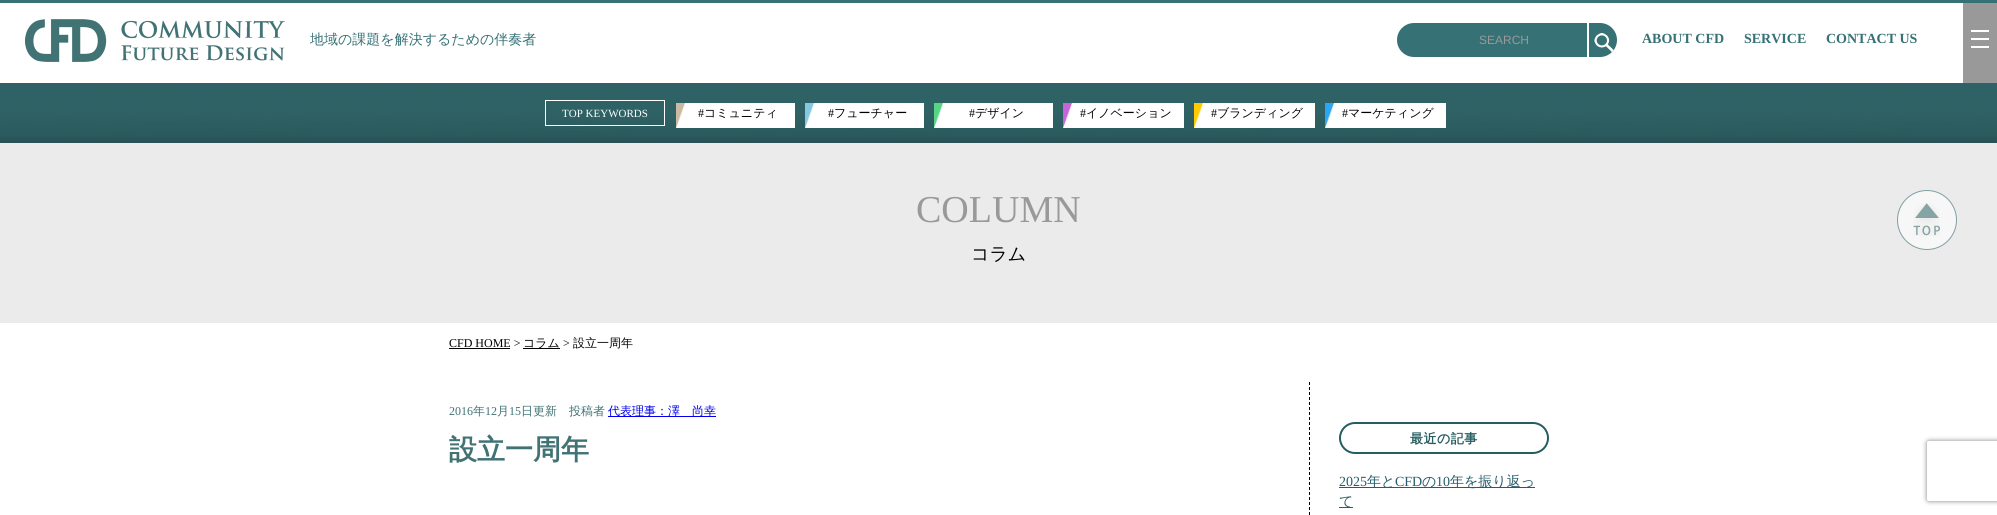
#include <cairo.h>
#include <math.h>
#include <stddef.h>


static void set_color(cairo_t *cr, unsigned color) {
    cairo_set_source_rgb(cr, (color >> 16) / 255.0, (color >> 8 & 255) / 255.0, (color & 255) / 255.0);
}

static void draw_text(cairo_t *cr, double x, double y, const char *s, const char *family, double size, int italic, int bold, unsigned color) {
    cairo_select_font_face(cr, family, italic ? CAIRO_FONT_SLANT_ITALIC : CAIRO_FONT_SLANT_NORMAL,
        bold ? CAIRO_FONT_WEIGHT_BOLD : CAIRO_FONT_WEIGHT_NORMAL);
    cairo_set_font_size(cr, size);
    set_color(cr, color);
    cairo_move_to(cr, x, y);
    cairo_show_text(cr, s);
}

static void draw_spaced(cairo_t *cr, double x, double y, const char *s, double letter, double word) {
    cairo_move_to(cr, x, y);
    while (*s) {
        char ch[5] = {0};
        int n = 0;
        do ch[n++] = *s++; while ((*s & 0xC0) == 0x80);
        cairo_show_text(cr, ch);
        cairo_rel_move_to(cr, letter + word * (*ch == ' '), 0);
    }
}

static void fill_rect(cairo_t *cr, double x, double y, double w, double h, unsigned color) {
    set_color(cr, color);
    cairo_rectangle(cr, x, y, w, h);
    cairo_fill(cr);
}

static void rounded_rect(cairo_t *cr, double x, double y, double w, double h, double r) {
    cairo_new_sub_path(cr);
    cairo_arc(cr, x + w - r, y + h - r, r, 0, M_PI / 2);
    cairo_arc(cr, x + r, y + h - r, r, M_PI / 2, M_PI);
    cairo_arc(cr, x + r, y + r, r, M_PI, 1.5 * M_PI);
    cairo_arc(cr, x + w - r, y + r, r, 1.5 * M_PI, 2 * M_PI);
    cairo_close_path(cr);
}

static void draw_shadow(cairo_t *cr, double x, double y, double w, double h, double r, double blur, double alpha) {
    cairo_push_group_with_content(cr, CAIRO_CONTENT_ALPHA);
    cairo_set_operator(cr, CAIRO_OPERATOR_SOURCE);
    for (int i = 15; i >= -15 && fmin(w, h) + blur * i / 3 > 0; i -= 2) {
        double e = blur * i / 6;
        cairo_set_source_rgba(cr, 0, 0, 0, alpha * erfc((i - 1) / 8.5) / 2);
        rounded_rect(cr, x - e, y - e, w + 2 * e, h + 2 * e, fmax(0, fmin(r + e + blur * .6, fmin(w, h) / 2 + e)));
        cairo_fill(cr);
    }
    cairo_pattern_t *soft = cairo_pop_group(cr);
    cairo_mask(cr, soft);
    cairo_pattern_destroy(soft);
}

static void draw_image(cairo_t *cr, const char *path, double x, double y, double w, double h) {
    cairo_surface_t *image = cairo_image_surface_create_from_png(path);
    cairo_save(cr);
    cairo_set_source_surface(cr, image, x, y);
    cairo_rectangle(cr, x, y, w, h);
    cairo_fill(cr);
    cairo_restore(cr);
    cairo_surface_destroy(image);
}

int main(void) {
    cairo_surface_t *surface = cairo_image_surface_create(CAIRO_FORMAT_RGB24, 1997, 515);
    cairo_t *cr = cairo_create(surface);
    cairo_font_options_t *options = cairo_font_options_create();
    cairo_font_options_set_hint_metrics(options, CAIRO_HINT_METRICS_OFF);
    cairo_font_options_set_hint_style(options, CAIRO_HINT_STYLE_NONE);
    cairo_set_font_options(cr, options);
    cairo_set_miter_limit(cr, 4);
    set_color(cr, 0xFFFFFF);
    cairo_paint(cr);
    fill_rect(cr, 0, 0, 1997, 3, 0x367175);
    draw_image(cr, "assets/img1.png", 25, 19, 260, 43);
    draw_text(cr, 310, 44, "地域の課題を解決するための伴奏者", "WenQuanYi Zen Hei Medium", 14, 0, 0, 0x367175);
    rounded_rect(cr, 1397, 23, 220, 34, 17);
    cairo_fill(cr);
    draw_text(cr, 1479, 44, "SEARCH", "Liberation Sans", 12, 0, 0, 0x999999);
    draw_image(cr, "assets/img2.png", 1594, 33, 20, 19);
    fill_rect(cr, 1587, 23, 2, 34, 0xFFFFFF);
    draw_text(cr, 1642, 43, "ABOUT CFD", "Liberation Serif", 14, 0, 1, 0x367175);
    draw_text(cr, 1744, 43, "SERVICE", "Liberation Serif", 14, 0, 1, 0x367175);
    draw_text(cr, 1826, 43, "CONTACT US", "Liberation Serif", 14, 0, 1, 0x367175);
    draw_image(cr, "assets/img3.png", 0, 83, 1997, 60);
    cairo_rectangle(cr, 545.5, 100.5, 119, 25);
    set_color(cr, 0xFFFFFF);
    cairo_set_line_width(cr, 1);
    cairo_stroke(cr);
    draw_text(cr, 562, 117, "TOP KEYWORDS", "Liberation Serif", 11, 0, 0, 0xFFFFFF);
    fill_rect(cr, 676, 103, 119, 25, 0xFFFFFF);
    draw_image(cr, "assets/img4.png", 676, 103, 9, 25);
    draw_text(cr, 698, 117, "#", "Liberation Serif", 12, 0, 0, 0x000000);
    draw_text(cr, 704, 117, "コミュニティ", "WenQuanYi Zen Hei Medium", 12, 0, 0, 0x000000);
    fill_rect(cr, 805, 103, 119, 25, 0xFFFFFF);
    draw_image(cr, "assets/img5.png", 805, 103, 9, 25);
    draw_text(cr, 828, 117, "#", "Liberation Serif", 12, 0, 0, 0x000000);
    draw_text(cr, 834, 117, "フューチャー", "WenQuanYi Zen Hei Medium", 12, 0, 0, 0x000000);
    fill_rect(cr, 934, 103, 119, 25, 0xFFFFFF);
    draw_image(cr, "assets/img6.png", 934, 103, 9, 25);
    draw_text(cr, 969, 117, "#", "Liberation Serif", 12, 0, 0, 0x000000);
    draw_text(cr, 975, 117, "デザイン", "WenQuanYi Zen Hei Medium", 12, 0, 0, 0x000000);
    fill_rect(cr, 1063, 103, 121, 25, 0xFFFFFF);
    draw_image(cr, "assets/img7.png", 1063, 103, 9, 25);
    draw_text(cr, 1080, 117, "#", "Liberation Serif", 12, 0, 0, 0x000000);
    draw_text(cr, 1086, 117, "イノベーション", "WenQuanYi Zen Hei Medium", 12, 0, 0, 0x000000);
    fill_rect(cr, 1194, 103, 121, 25, 0xFFFFFF);
    draw_image(cr, "assets/img8.png", 1194, 103, 9, 25);
    draw_text(cr, 1211, 117, "#", "Liberation Serif", 12, 0, 0, 0x000000);
    draw_text(cr, 1217, 117, "ブランディング", "WenQuanYi Zen Hei Medium", 12, 0, 0, 0x000000);
    fill_rect(cr, 1325, 103, 121, 25, 0xFFFFFF);
    draw_image(cr, "assets/img9.png", 1325, 103, 9, 25);
    draw_text(cr, 1342, 117, "#", "Liberation Serif", 12, 0, 0, 0x000000);
    draw_text(cr, 1348, 117, "マーケティング", "WenQuanYi Zen Hei Medium", 12, 0, 0, 0x000000);
    fill_rect(cr, 1963, 3, 34, 80, 0x999999);
    fill_rect(cr, 1971, 38, 18, 2, 0xFFFFFF);
    fill_rect(cr, 1971, 30, 18, 2, 0xFFFFFF);
    fill_rect(cr, 1971, 46, 18, 2, 0xFFFFFF);
    fill_rect(cr, 0, 143, 1997, 180, 0xEBEBEB);
    draw_text(cr, 916, 222, "COLUMN", "Liberation Serif", 38, 0, 0, 0x999999);
    draw_text(cr, 971, 260, "コラム", "WenQuanYi Zen Hei Medium", 18, 0, 0, 0x000000);
    set_color(cr, 0xF7F7F7);
    cairo_new_path(cr);
    cairo_arc(cr, 1927, 220, 29.5, 0, 2 * M_PI);
    cairo_fill_preserve(cr);
    set_color(cr, 0x829FA1);
    cairo_stroke(cr);
    draw_image(cr, "assets/img10.png", 1913, 203, 27, 33);
    draw_text(cr, 449, 347, "CFD HOME >", "Liberation Serif", 12, 0, 0, 0x000000);
    fill_rect(cr, 449, 348, 61, 1, 0x000000);
    fill_rect(cr, 523, 348, 37, 1, 0x000000);
    draw_text(cr, 523, 347, "コラム", "WenQuanYi Zen Hei Medium", 12, 0, 0, 0x000000);
    draw_text(cr, 563, 347, ">", "Liberation Serif", 12, 0, 0, 0x000000);
    draw_text(cr, 573, 347, "設立一周年", "WenQuanYi Zen Hei Medium", 12, 0, 0, 0x000000);
    cairo_new_path(cr);
    cairo_move_to(cr, 1309.5, 382);
    cairo_line_to(cr, 1309.5, 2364);
    cairo_set_dash(cr, (double[]){3, 2}, 2, 0);
    cairo_stroke(cr);
    draw_text(cr, 449, 415, "2016", "Liberation Serif", 12, 0, 0, 0x417274);
    draw_text(cr, 473, 415, "年", "WenQuanYi Zen Hei Medium", 12, 0, 0, 0x417274);
    draw_text(cr, 485, 415, "12", "Liberation Serif", 12, 0, 0, 0x417274);
    draw_text(cr, 497, 415, "月", "WenQuanYi Zen Hei Medium", 12, 0, 0, 0x417274);
    draw_text(cr, 509, 415, "15", "Liberation Serif", 12, 0, 0, 0x417274);
    draw_text(cr, 521, 415, "日更新　投稿者", "WenQuanYi Zen Hei Medium", 12, 0, 0, 0x417274);
    fill_rect(cr, 608, 416, 108, 1, 0x0000EE);
    draw_text(cr, 608, 415, "代表理事：澤　尚幸", "WenQuanYi Zen Hei Medium", 12, 0, 0, 0x0000EE);
    draw_text(cr, 449, 459, "設立一周年", "WenQuanYi Zen Hei", 28, 0, 1, 0x417274);
    rounded_rect(cr, 1340, 423, 208, 30, 15);
    set_color(cr, 0x265D61);
    cairo_set_line_width(cr, 2);
    cairo_set_dash(cr, NULL, 0, 0);
    cairo_stroke(cr);
    cairo_set_font_size(cr, 13);
    draw_spaced(cr, 1410, 443, "最近の記事", 0.5, 0);
    draw_text(cr, 1339, 486, "2025", "Liberation Serif", 14, 0, 0, 0x265D6A);
    fill_rect(cr, 1339, 487, 196, 1, 0x265D6A);
    draw_text(cr, 1367, 486, "年と", "WenQuanYi Zen Hei Medium", 14, 0, 0, 0x265D6A);
    draw_text(cr, 1395, 486, "CFD", "Liberation Serif", 14, 0, 0, 0x265D6A);
    draw_text(cr, 1422, 486, "の", "WenQuanYi Zen Hei Medium", 14, 0, 0, 0x265D6A);
    draw_text(cr, 1436, 486, "10", "Liberation Serif", 14, 0, 0, 0x265D6A);
    draw_text(cr, 1450, 486, "年を振り返っ", "WenQuanYi Zen Hei Medium", 14, 0, 0, 0x265D6A);
    fill_rect(cr, 1339, 507, 14, 1, 0x265D6A);
    draw_text(cr, 1339, 506, "て", "WenQuanYi Zen Hei Medium", 14, 0, 0, 0x265D6A);
    cairo_save(cr);
    cairo_set_fill_rule(cr, CAIRO_FILL_RULE_EVEN_ODD);
    cairo_new_path(cr);
    cairo_move_to(cr, 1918, 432);
    cairo_line_to(cr, 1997, 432);
    cairo_line_to(cr, 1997, 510);
    cairo_line_to(cr, 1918, 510);
    cairo_close_path(cr);
    cairo_move_to(cr, 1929, 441);
    cairo_line_to(cr, 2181, 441);
    cairo_curve_to(cr, 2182, 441, 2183, 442, 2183, 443);
    cairo_line_to(cr, 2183, 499);
    cairo_curve_to(cr, 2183, 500, 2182, 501, 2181, 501);
    cairo_line_to(cr, 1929, 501);
    cairo_curve_to(cr, 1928, 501, 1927, 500, 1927, 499);
    cairo_line_to(cr, 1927, 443);
    cairo_curve_to(cr, 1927, 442, 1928, 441, 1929, 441);
    cairo_close_path(cr);
    cairo_clip(cr);
    set_color(cr, 0x808080);
    draw_shadow(cr, 1927, 441, 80, 60, 2, 2.5, 1);
    cairo_restore(cr);
    cairo_surface_write_to_png(surface, "output.png");
    cairo_font_options_destroy(options);
    cairo_destroy(cr);
    cairo_surface_destroy(surface);
    return 0;
}
